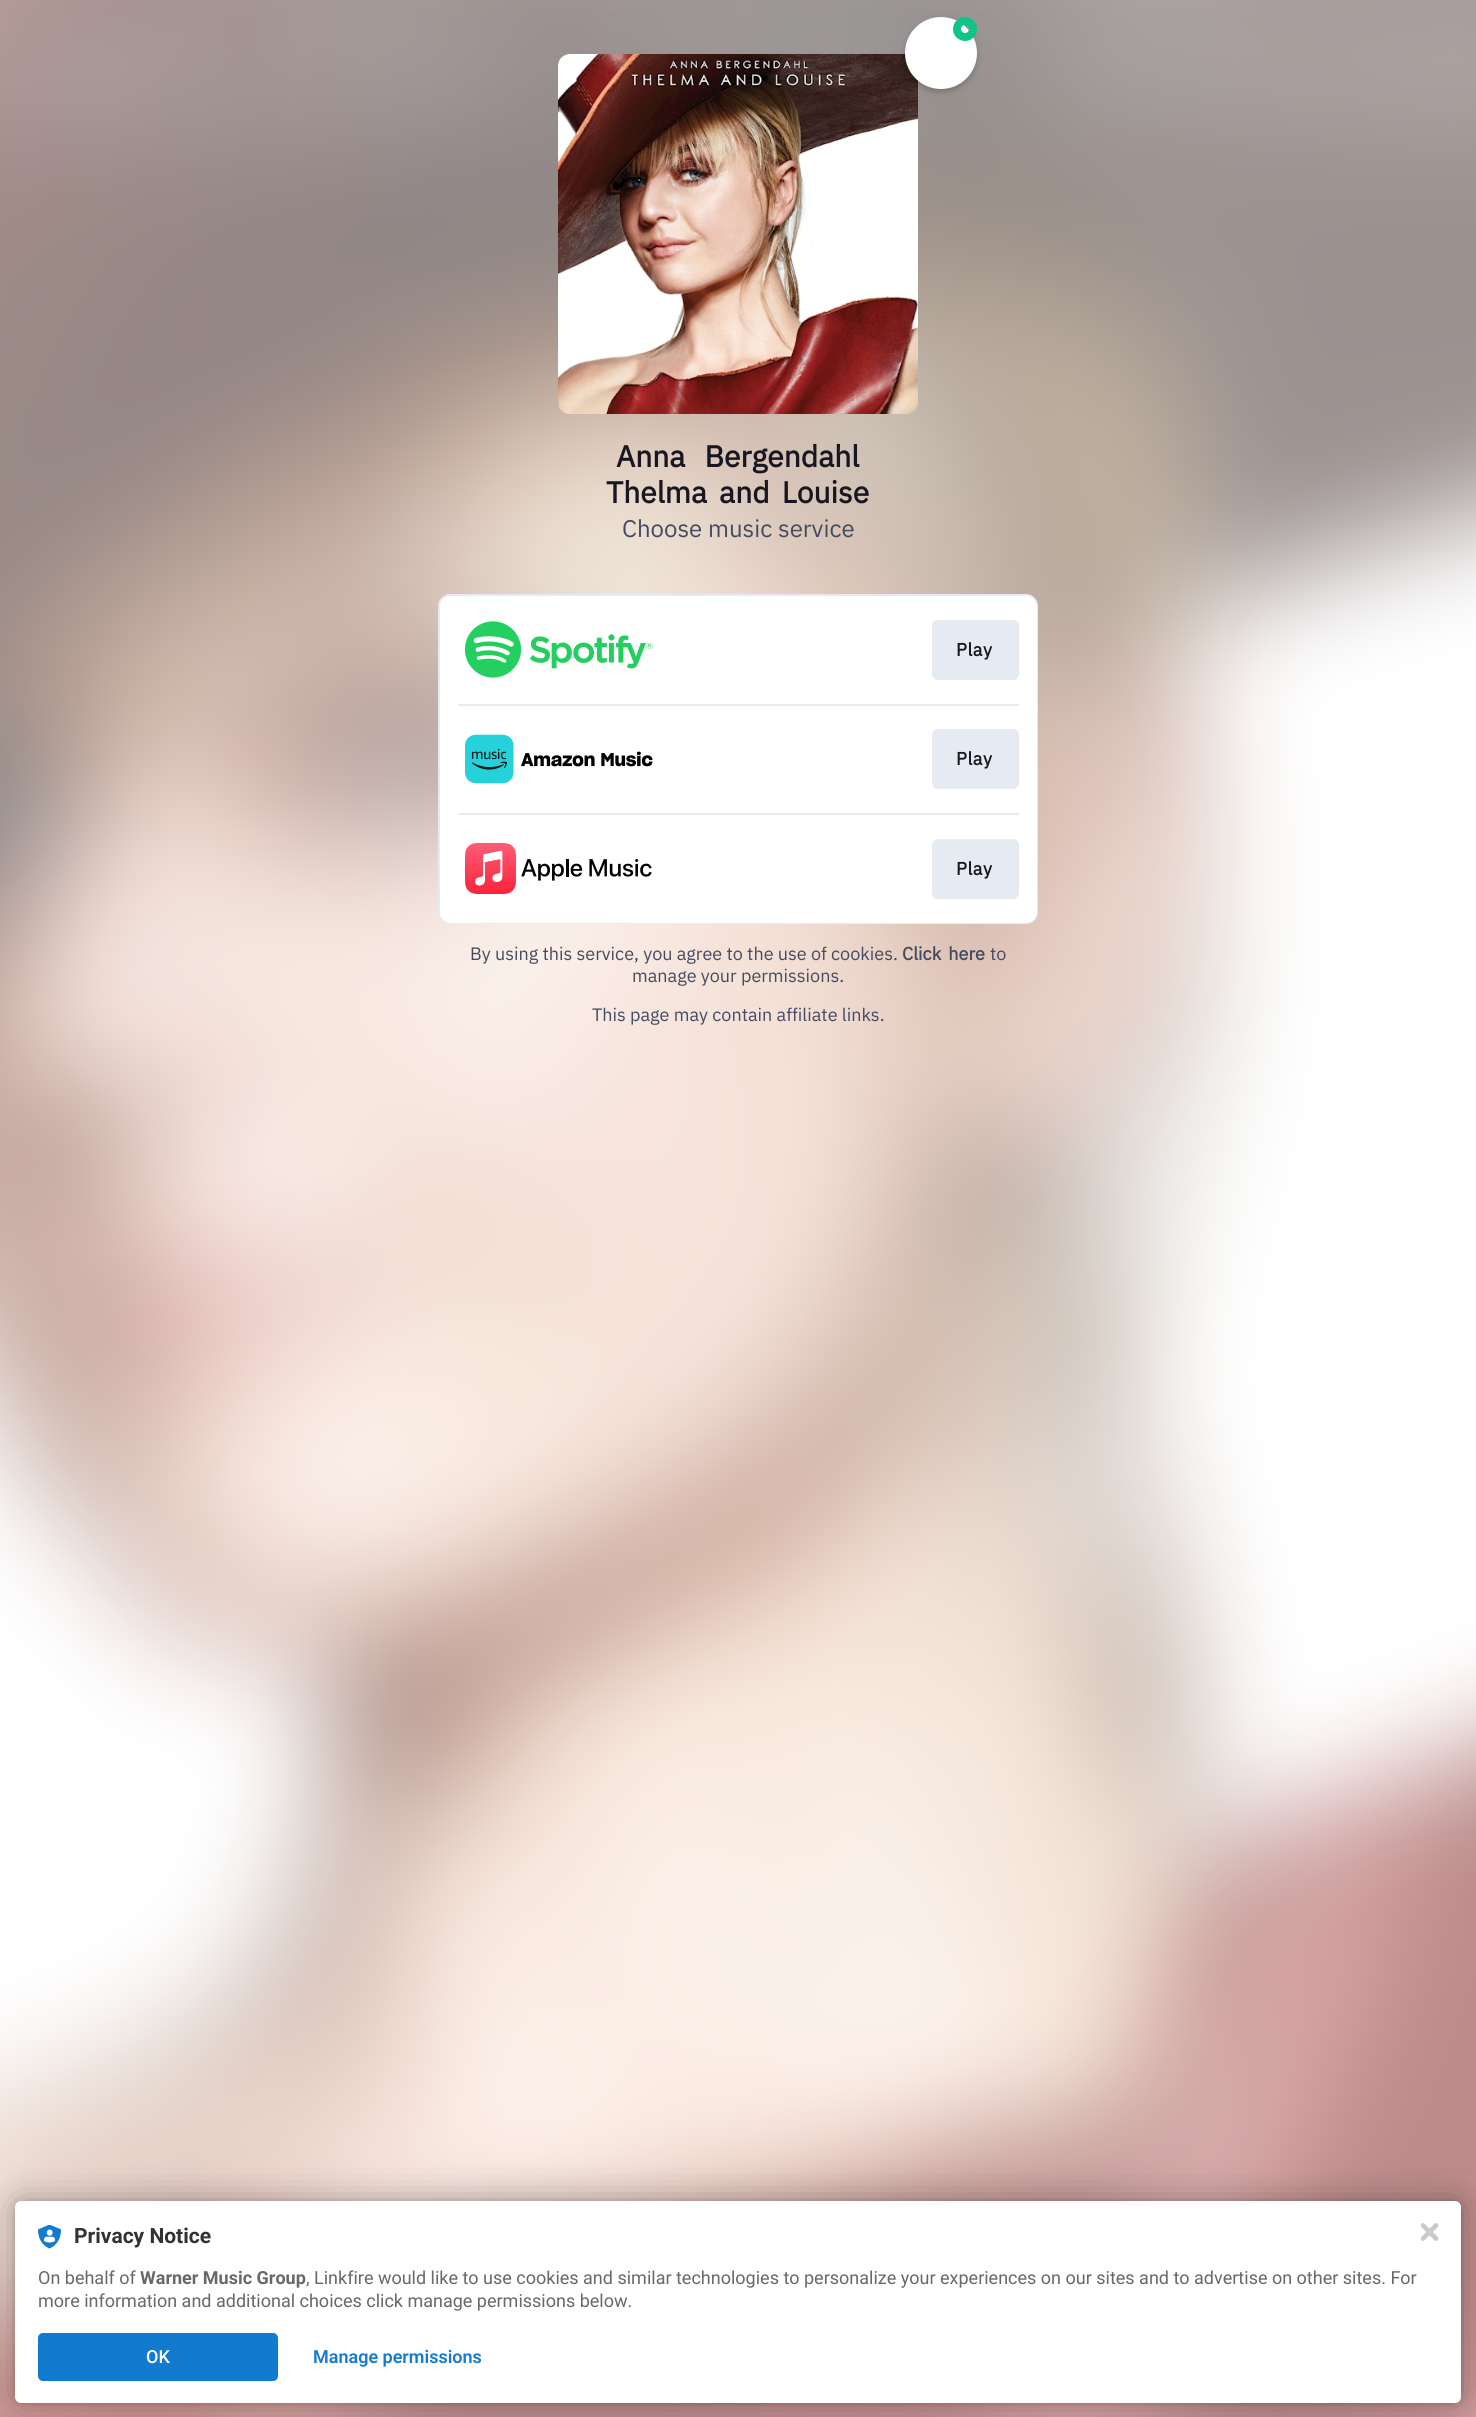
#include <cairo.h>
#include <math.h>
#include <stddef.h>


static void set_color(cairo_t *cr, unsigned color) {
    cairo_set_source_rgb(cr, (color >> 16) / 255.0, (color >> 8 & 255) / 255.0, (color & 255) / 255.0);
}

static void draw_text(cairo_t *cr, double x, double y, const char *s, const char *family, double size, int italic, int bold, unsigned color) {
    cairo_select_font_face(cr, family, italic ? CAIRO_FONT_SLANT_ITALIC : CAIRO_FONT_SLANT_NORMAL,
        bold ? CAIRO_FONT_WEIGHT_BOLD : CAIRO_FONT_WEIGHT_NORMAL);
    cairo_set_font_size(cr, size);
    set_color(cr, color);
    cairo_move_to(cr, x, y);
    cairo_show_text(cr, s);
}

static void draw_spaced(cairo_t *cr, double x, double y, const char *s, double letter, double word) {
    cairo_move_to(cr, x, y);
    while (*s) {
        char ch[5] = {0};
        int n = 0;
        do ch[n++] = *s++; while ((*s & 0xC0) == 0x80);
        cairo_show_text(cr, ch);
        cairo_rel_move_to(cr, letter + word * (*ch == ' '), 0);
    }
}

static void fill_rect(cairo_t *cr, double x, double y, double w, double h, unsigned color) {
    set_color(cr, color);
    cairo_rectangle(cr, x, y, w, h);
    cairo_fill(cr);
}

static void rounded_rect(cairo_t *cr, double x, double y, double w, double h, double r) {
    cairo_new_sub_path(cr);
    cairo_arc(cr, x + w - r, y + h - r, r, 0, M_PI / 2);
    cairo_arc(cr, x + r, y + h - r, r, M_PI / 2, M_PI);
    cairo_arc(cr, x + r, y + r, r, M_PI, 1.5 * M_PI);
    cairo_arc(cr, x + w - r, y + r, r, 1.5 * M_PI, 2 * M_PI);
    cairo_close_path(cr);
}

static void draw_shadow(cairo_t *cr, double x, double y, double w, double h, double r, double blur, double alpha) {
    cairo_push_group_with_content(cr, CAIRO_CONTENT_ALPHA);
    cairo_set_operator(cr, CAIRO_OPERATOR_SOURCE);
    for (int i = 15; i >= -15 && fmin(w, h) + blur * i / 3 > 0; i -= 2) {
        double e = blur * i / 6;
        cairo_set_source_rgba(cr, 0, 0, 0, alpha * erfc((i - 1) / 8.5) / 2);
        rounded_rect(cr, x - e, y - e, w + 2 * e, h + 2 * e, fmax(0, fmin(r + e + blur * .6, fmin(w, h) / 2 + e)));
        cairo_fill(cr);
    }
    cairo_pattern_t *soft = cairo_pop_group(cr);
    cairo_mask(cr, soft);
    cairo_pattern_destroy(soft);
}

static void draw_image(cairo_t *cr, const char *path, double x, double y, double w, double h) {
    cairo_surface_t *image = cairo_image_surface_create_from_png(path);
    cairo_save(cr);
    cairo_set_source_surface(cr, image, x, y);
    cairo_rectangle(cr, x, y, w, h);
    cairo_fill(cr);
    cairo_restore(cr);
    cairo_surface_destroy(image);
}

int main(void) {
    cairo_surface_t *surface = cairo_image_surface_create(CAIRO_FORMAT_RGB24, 1476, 2417);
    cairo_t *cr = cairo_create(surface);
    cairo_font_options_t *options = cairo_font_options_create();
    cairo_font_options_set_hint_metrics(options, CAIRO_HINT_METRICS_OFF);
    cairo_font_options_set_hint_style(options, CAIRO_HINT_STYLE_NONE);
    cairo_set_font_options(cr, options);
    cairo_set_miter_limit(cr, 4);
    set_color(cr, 0xFFFFFF);
    cairo_paint(cr);
    draw_image(cr, "assets/img1.png", 0, 0, 1476, 2417);
    draw_image(cr, "assets/img2.png", 558, 54, 360, 360);
    set_color(cr, 0x000000);
    draw_shadow(cr, 905, 20, 72, 72, 36, 3, 0.2);
    set_color(cr, 0xFFFFFF);
    cairo_arc(cr, 941, 53, 36, 0, 2 * M_PI);
    cairo_fill(cr);
    cairo_arc(cr, 965, 29, 8, 0, 2 * M_PI);
    set_color(cr, 0x0DC587);
    cairo_set_line_width(cr, 8);
    cairo_stroke(cr);
    cairo_select_font_face(cr, "IBM Plex Sans", CAIRO_FONT_SLANT_NORMAL, CAIRO_FONT_WEIGHT_BOLD);
    cairo_set_font_size(cr, 30);
    set_color(cr, 0x181721);
    draw_spaced(cr, 616, 467, "Anna Bergendahl", 0, 12);
    draw_spaced(cr, 606, 503, "Thelma and Louise", 0, 5);
    draw_text(cr, 622, 537, "Choose music service", "IBM Plex Sans", 24, 0, 0, 0x454B5F);
    set_color(cr, 0xFFFFFF);
    rounded_rect(cr, 439, 595, 598, 328, 11);
    cairo_fill_preserve(cr);
    set_color(cr, 0xE6EAF2);
    cairo_set_line_width(cr, 2);
    cairo_stroke(cr);
    set_color(cr, 0xFFFFFF);
    rounded_rect(cr, 440, 596, 597, 327, 11);
    cairo_fill(cr);
    draw_image(cr, "assets/img3.png", 465, 621, 188, 57);
    set_color(cr, 0xE6EAF2);
    rounded_rect(cr, 932, 620, 87, 60, 6);
    cairo_fill(cr);
    cairo_select_font_face(cr, "IBM Plex Sans", CAIRO_FONT_SLANT_NORMAL, CAIRO_FONT_WEIGHT_BOLD);
    cairo_set_font_size(cr, 18);
    set_color(cr, 0x181721);
    draw_spaced(cr, 956, 656, "Play", 0.5, 0);
    fill_rect(cr, 458, 704, 561, 2, 0xE6EAF2);
    draw_image(cr, "assets/img4.png", 465, 734, 188, 50);
    rounded_rect(cr, 932, 729, 87, 60, 6);
    cairo_fill(cr);
    set_color(cr, 0x181721);
    draw_spaced(cr, 956, 765, "Play", 0.5, 0);
    fill_rect(cr, 458, 813, 561, 2, 0xE6EAF2);
    draw_image(cr, "assets/img5.png", 465, 843, 187, 51);
    rounded_rect(cr, 932, 839, 87, 60, 6);
    cairo_fill(cr);
    set_color(cr, 0x181721);
    draw_spaced(cr, 956, 875, "Play", 0.5, 0);
    draw_text(cr, 470, 960, "By using this service, you agree to the use of cookies.", "IBM Plex Sans", 18, 0, 0, 0x454B5F);
    cairo_select_font_face(cr, "IBM Plex Sans", CAIRO_FONT_SLANT_NORMAL, CAIRO_FONT_WEIGHT_BOLD);
    draw_spaced(cr, 902, 960, "Click here", 0, 3);
    draw_text(cr, 990, 960, "to", "IBM Plex Sans", 18, 0, 0, 0x454B5F);
    draw_text(cr, 632, 982, "manage your permissions.", "IBM Plex Sans", 18, 0, 0, 0x454B5F);
    draw_text(cr, 592, 1021, "This page may contain affiliate links.", "IBM Plex Sans", 18, 0, 0, 0x454B5F);
    set_color(cr, 0x000000);
    draw_shadow(cr, 15, 2201, 1446, 202, 6, 3, 0.12);
    draw_shadow(cr, 15, 2201, 1446, 202, 6, 18, 0.3);
    set_color(cr, 0xFFFFFF);
    rounded_rect(cr, 15, 2201, 1446, 202, 6);
    cairo_fill(cr);
    draw_image(cr, "assets/img6.png", 38, 2225, 23, 24);
    draw_text(cr, 74, 2243, "Privacy Notice", "Roboto", 21, 0, 1, 0x323232);
    draw_text(cr, 38, 2284, "On behalf of", "Roboto", 18, 0, 0, 0x686868);
    draw_text(cr, 140, 2284, "Warner Music Group", "Roboto", 18, 0, 1, 0x686868);
    draw_text(cr, 306, 2284, ", Linkfire would like to use cookies and similar technologies to personalize your experiences on our sites and to advertise on other sites. For", "Roboto", 18, 0, 0, 0x686868);
    draw_text(cr, 38, 2307, "more information and additional choices click manage permissions below.", "Roboto", 18, 0, 0, 0x686868);
    set_color(cr, 0x137BCF);
    rounded_rect(cr, 38, 2333, 240, 48, 5);
    cairo_fill(cr);
    draw_text(cr, 146, 2363, "OK", "Roboto Medium", 18, 0, 0, 0xFFFFFF);
    draw_text(cr, 313, 2363, "Manage permissions", "Roboto SemiBold", 18, 0, 0, 0x137BCF);
    draw_image(cr, "assets/img7.png", 1421, 2223, 18, 18);
    cairo_surface_write_to_png(surface, "output.png");
    cairo_font_options_destroy(options);
    cairo_destroy(cr);
    cairo_surface_destroy(surface);
    return 0;
}
